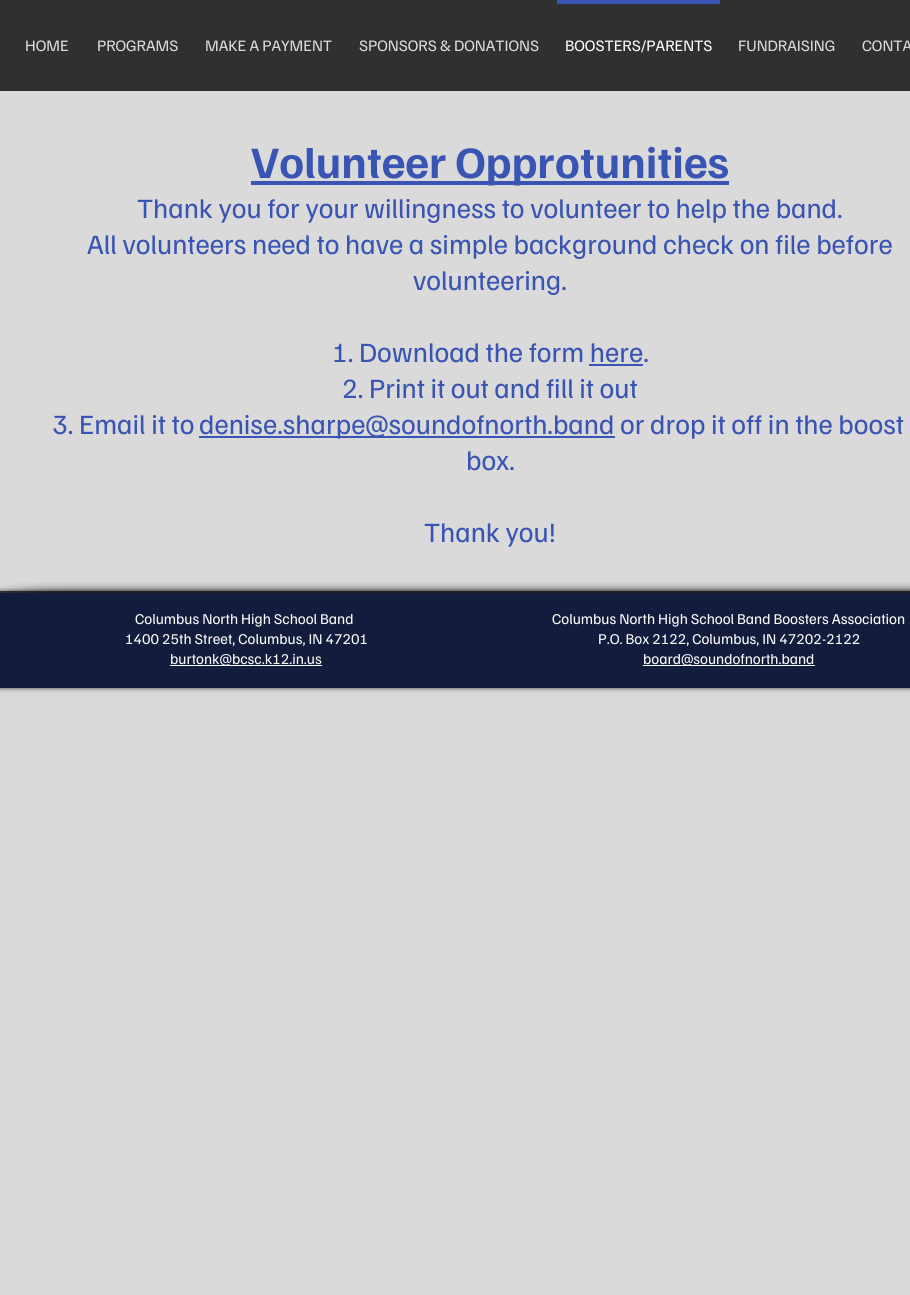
#include <cairo.h>
#include <math.h>
#include <stddef.h>


static void set_color(cairo_t *cr, unsigned color) {
    cairo_set_source_rgb(cr, (color >> 16) / 255.0, (color >> 8 & 255) / 255.0, (color & 255) / 255.0);
}

static void draw_text(cairo_t *cr, double x, double y, const char *s, const char *family, double size, int italic, int bold, unsigned color) {
    cairo_select_font_face(cr, family, italic ? CAIRO_FONT_SLANT_ITALIC : CAIRO_FONT_SLANT_NORMAL,
        bold ? CAIRO_FONT_WEIGHT_BOLD : CAIRO_FONT_WEIGHT_NORMAL);
    cairo_set_font_size(cr, size);
    set_color(cr, color);
    cairo_move_to(cr, x, y);
    cairo_show_text(cr, s);
}

static void fill_rect(cairo_t *cr, double x, double y, double w, double h, unsigned color) {
    set_color(cr, color);
    cairo_rectangle(cr, x, y, w, h);
    cairo_fill(cr);
}

static void rounded_rect(cairo_t *cr, double x, double y, double w, double h, double r) {
    cairo_new_sub_path(cr);
    cairo_arc(cr, x + w - r, y + h - r, r, 0, M_PI / 2);
    cairo_arc(cr, x + r, y + h - r, r, M_PI / 2, M_PI);
    cairo_arc(cr, x + r, y + r, r, M_PI, 1.5 * M_PI);
    cairo_arc(cr, x + w - r, y + r, r, 1.5 * M_PI, 2 * M_PI);
    cairo_close_path(cr);
}

static void draw_shadow(cairo_t *cr, double x, double y, double w, double h, double r, double blur, double alpha) {
    cairo_push_group_with_content(cr, CAIRO_CONTENT_ALPHA);
    cairo_set_operator(cr, CAIRO_OPERATOR_SOURCE);
    for (int i = 15; i >= -15 && fmin(w, h) + blur * i / 3 > 0; i -= 2) {
        double e = blur * i / 6;
        cairo_set_source_rgba(cr, 0, 0, 0, alpha * erfc((i - 1) / 8.5) / 2);
        rounded_rect(cr, x - e, y - e, w + 2 * e, h + 2 * e, fmax(0, fmin(r + e + blur * .6, fmin(w, h) / 2 + e)));
        cairo_fill(cr);
    }
    cairo_pattern_t *soft = cairo_pop_group(cr);
    cairo_mask(cr, soft);
    cairo_pattern_destroy(soft);
}

static void draw_image(cairo_t *cr, const char *path, double x, double y, double w, double h) {
    cairo_surface_t *image = cairo_image_surface_create_from_png(path);
    cairo_save(cr);
    cairo_set_source_surface(cr, image, x, y);
    cairo_rectangle(cr, x, y, w, h);
    cairo_fill(cr);
    cairo_restore(cr);
    cairo_surface_destroy(image);
}

int main(void) {
    cairo_surface_t *surface = cairo_image_surface_create(CAIRO_FORMAT_RGB24, 910, 1295);
    cairo_t *cr = cairo_create(surface);
    cairo_font_options_t *options = cairo_font_options_create();
    cairo_font_options_set_hint_metrics(options, CAIRO_HINT_METRICS_OFF);
    cairo_font_options_set_hint_style(options, CAIRO_HINT_STYLE_NONE);
    cairo_set_font_options(cr, options);
    cairo_set_miter_limit(cr, 4);
    set_color(cr, 0xDADADA);
    cairo_paint(cr);
    fill_rect(cr, 0, 0, 910, 91, 0x303030);
    draw_text(cr, 25, 51, "HOME", "Familjen Grotesk", 16, 0, 0, 0xDADADA);
    draw_text(cr, 97, 51, "PROGRAMS", "Familjen Grotesk", 16, 0, 0, 0xDADADA);
    draw_text(cr, 205, 51, "MAKE A PAYMENT", "Familjen Grotesk", 16, 0, 0, 0xDADADA);
    draw_text(cr, 359, 51, "SPONSORS & DONATIONS", "Familjen Grotesk", 16, 0, 0, 0xDADADA);
    fill_rect(cr, 557, 0, 163, 4, 0x3A54B4);
    draw_text(cr, 565, 51, "BOOSTERS/PARENTS", "Familjen Grotesk", 16, 0, 0, 0xFCFCFC);
    draw_text(cr, 738, 51, "FUNDRAISING", "Familjen Grotesk", 16, 0, 0, 0xDADADA);
    draw_text(cr, 862, 51, "CONTA", "Familjen Grotesk", 16, 0, 0, 0xDADADA);
    fill_rect(cr, 251, 181, 478, 4, 0x3A54B4);
    draw_text(cr, 251, 178, "Volunteer Opprotunities", "Familjen Grotesk", 45, 0, 1, 0x3A54B4);
    draw_text(cr, 137, 218, "Thank you for your willingness to volunteer to help the band.", "Familjen Grotesk", 28, 0, 0, 0x3A54B4);
    draw_text(cr, 87, 254, "All volunteers need to have a simple background check on file before", "Familjen Grotesk", 28, 0, 0, 0x3A54B4);
    draw_text(cr, 413, 290, "volunteering.", "Familjen Grotesk", 28, 0, 0, 0x3A54B4);
    draw_text(cr, 332, 362, "1. Download the form here.", "Familjen Grotesk", 28, 0, 0, 0x3A54B4);
    fill_rect(cr, 589, 364, 54, 2, 0x3A54B4);
    draw_text(cr, 342, 398, "2. Print it out and fill it out", "Familjen Grotesk", 28, 0, 0, 0x3A54B4);
    draw_text(cr, 52, 434, "3. Email it to", "Familjen Grotesk", 28, 0, 0, 0x3A54B4);
    fill_rect(cr, 199, 436, 416, 2, 0x3A54B4);
    draw_text(cr, 199, 434, "denise.sharpe@soundofnorth.band or drop it off in the boost", "Familjen Grotesk", 28, 0, 0, 0x3A54B4);
    draw_text(cr, 466, 470, "box.", "Familjen Grotesk", 28, 0, 0, 0x3A54B4);
    draw_text(cr, 424, 542, "Thank you!", "Familjen Grotesk", 28, 0, 0, 0x3A54B4);
    set_color(cr, 0x000000);
    draw_shadow(cr, 0, 591, 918, 97, 0, 2.5, 0.7);
    fill_rect(cr, 0, 593, 910, 95, 0x131C3C);
    fill_rect(cr, 0, 591, 910, 2, 0x303030);
    draw_image(cr, "assets/img1.png", 6, 582, 94, 11);
    draw_image(cr, "assets/img2.png", 100, 582, 780, 11);
    draw_image(cr, "assets/img3.png", 880, 582, 30, 11);
    draw_text(cr, 135, 624, "Columbus North High School Band", "Familjen Grotesk", 15, 0, 0, 0xFCFCFC);
    draw_text(cr, 125, 644, "1400 25th Street, Columbus, IN 47201", "Familjen Grotesk", 15, 0, 0, 0xFCFCFC);
    fill_rect(cr, 170, 665, 152, 1, 0xFCFCFC);
    draw_text(cr, 170, 664, "burtonk@bcsc.k12.in.us", "Familjen Grotesk", 15, 0, 0, 0xFCFCFC);
    draw_text(cr, 552, 624, "Columbus North High School Band Boosters Association", "Familjen Grotesk", 15, 0, 0, 0xFCFCFC);
    draw_text(cr, 598, 644, "P.O. Box 2122, Columbus, IN 47202-2122", "Familjen Grotesk", 15, 0, 0, 0xFCFCFC);
    fill_rect(cr, 643, 665, 172, 1, 0xFCFCFC);
    draw_text(cr, 643, 664, "board@soundofnorth.band", "Familjen Grotesk", 15, 0, 0, 0xFCFCFC);
    cairo_surface_write_to_png(surface, "output.png");
    cairo_font_options_destroy(options);
    cairo_destroy(cr);
    cairo_surface_destroy(surface);
    return 0;
}
